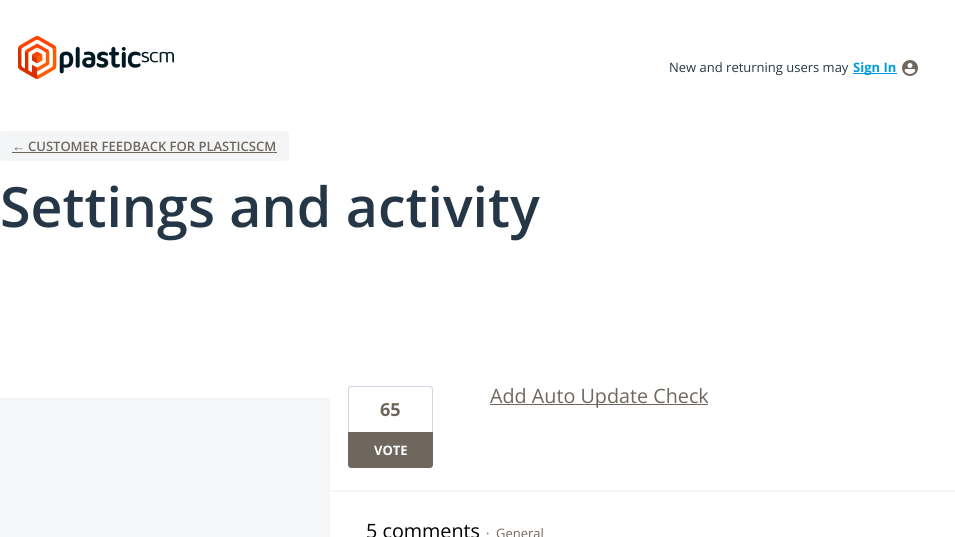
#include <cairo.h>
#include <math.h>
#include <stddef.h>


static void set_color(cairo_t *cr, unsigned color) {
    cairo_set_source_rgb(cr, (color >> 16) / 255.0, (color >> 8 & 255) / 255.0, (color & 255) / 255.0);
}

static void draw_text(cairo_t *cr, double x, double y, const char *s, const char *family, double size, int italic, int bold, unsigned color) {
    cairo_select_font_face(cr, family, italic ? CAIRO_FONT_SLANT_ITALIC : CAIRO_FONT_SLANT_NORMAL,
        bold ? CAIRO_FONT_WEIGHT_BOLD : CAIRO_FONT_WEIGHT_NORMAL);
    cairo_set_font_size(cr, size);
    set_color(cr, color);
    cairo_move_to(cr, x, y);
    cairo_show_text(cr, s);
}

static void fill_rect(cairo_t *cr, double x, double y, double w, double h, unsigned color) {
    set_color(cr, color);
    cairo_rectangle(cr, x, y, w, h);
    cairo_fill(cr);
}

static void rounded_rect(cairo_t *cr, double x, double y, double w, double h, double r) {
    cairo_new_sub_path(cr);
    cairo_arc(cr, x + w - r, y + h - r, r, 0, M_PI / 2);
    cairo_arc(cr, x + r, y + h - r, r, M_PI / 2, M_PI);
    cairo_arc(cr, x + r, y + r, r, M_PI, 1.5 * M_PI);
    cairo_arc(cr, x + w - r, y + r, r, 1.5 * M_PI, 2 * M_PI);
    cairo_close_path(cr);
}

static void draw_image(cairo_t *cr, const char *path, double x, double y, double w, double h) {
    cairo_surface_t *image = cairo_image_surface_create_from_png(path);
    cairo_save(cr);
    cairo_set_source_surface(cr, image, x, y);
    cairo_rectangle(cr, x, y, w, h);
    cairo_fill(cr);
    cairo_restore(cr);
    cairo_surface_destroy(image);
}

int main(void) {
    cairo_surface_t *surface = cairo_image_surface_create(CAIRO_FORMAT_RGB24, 955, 537);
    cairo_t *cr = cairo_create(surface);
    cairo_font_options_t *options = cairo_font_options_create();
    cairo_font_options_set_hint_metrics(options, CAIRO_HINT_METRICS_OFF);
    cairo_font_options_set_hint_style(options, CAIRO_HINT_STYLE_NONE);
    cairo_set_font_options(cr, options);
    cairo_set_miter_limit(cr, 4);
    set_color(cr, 0xFFFFFF);
    cairo_paint(cr);
    draw_image(cr, "assets/img1.png", 18, 36, 156, 43);
    draw_text(cr, 669, 72, "New and returning users may", "Open Sans", 13, 0, 0, 0x253746);
    fill_rect(cr, 853, 73, 44, 1, 0x009CDE);
    draw_text(cr, 853, 72, "Sign In", "Open Sans", 13, 0, 1, 0x009CDE);
    draw_image(cr, "assets/img2.png", 902, 60, 16, 16);
    set_color(cr, 0xF4F5F6);
    rounded_rect(cr, 0, 131, 289, 30, 3);
    cairo_fill(cr);
    draw_text(cr, 12, 151, "←", "Liberation Sans", 13, 0, 1, 0x6F675E);
    fill_rect(cr, 12, 152, 265, 1, 0x6F675E);
    draw_text(cr, 28, 151, "CUSTOMER FEEDBACK FOR PLASTICSCM", "Open Sans SemiBold", 13, 0, 0, 0x6F675E);
    draw_text(cr, 0, 227, "Settings and activity", "Open Sans SemiBold", 55.5, 0, 0, 0x253746);
    fill_rect(cr, 490, 404, 218, 1, 0x6F675E);
    draw_text(cr, 490, 403, "Add Auto Update Check", "Open Sans", 19.75, 0, 0, 0x6F675E);
    set_color(cr, 0xCFD7E6);
    cairo_set_fill_rule(cr, CAIRO_FILL_RULE_EVEN_ODD);
    cairo_new_path(cr);
    cairo_move_to(cr, 351, 386);
    cairo_line_to(cr, 430, 386);
    cairo_curve_to(cr, 432, 386, 433, 387, 433, 389);
    cairo_line_to(cr, 433, 432);
    cairo_line_to(cr, 348, 432);
    cairo_line_to(cr, 348, 389);
    cairo_curve_to(cr, 348, 387, 349, 386, 351, 386);
    cairo_close_path(cr);
    cairo_move_to(cr, 351, 387);
    cairo_line_to(cr, 430, 387);
    cairo_curve_to(cr, 431, 387, 432, 388, 432, 389);
    cairo_line_to(cr, 432, 432);
    cairo_line_to(cr, 349, 432);
    cairo_line_to(cr, 349, 389);
    cairo_curve_to(cr, 349, 388, 350, 387, 351, 387);
    cairo_close_path(cr);
    cairo_fill(cr);
    draw_text(cr, 380, 416, "65", "Open Sans", 18, 0, 1, 0x6F675E);
    cairo_new_path(cr);
    cairo_move_to(cr, 348, 432);
    cairo_line_to(cr, 433, 432);
    cairo_line_to(cr, 433, 465);
    cairo_curve_to(cr, 433, 466.5, 431.5, 468, 430, 468);
    cairo_line_to(cr, 351, 468);
    cairo_curve_to(cr, 349.5, 468, 348, 466.5, 348, 465);
    cairo_close_path(cr);
    cairo_fill(cr);
    draw_text(cr, 374, 455, "VOTE", "Open Sans", 13, 0, 1, 0xFFFFFF);
    fill_rect(cr, 330, 490, 625, 2, 0xF5F6F7);
    draw_text(cr, 366, 538, "5 comments", "Open Sans", 19.75, 0, 0, 0x000000);
    draw_text(cr, 486, 538, "·", "Open Sans", 13, 0, 0, 0x646B72);
    draw_text(cr, 496, 538, "General", "Open Sans", 13, 0, 0, 0x6F675E);
    fill_rect(cr, 0, 398, 330, 139, 0xF5F6F7);
    cairo_surface_write_to_png(surface, "output.png");
    cairo_font_options_destroy(options);
    cairo_destroy(cr);
    cairo_surface_destroy(surface);
    return 0;
}
